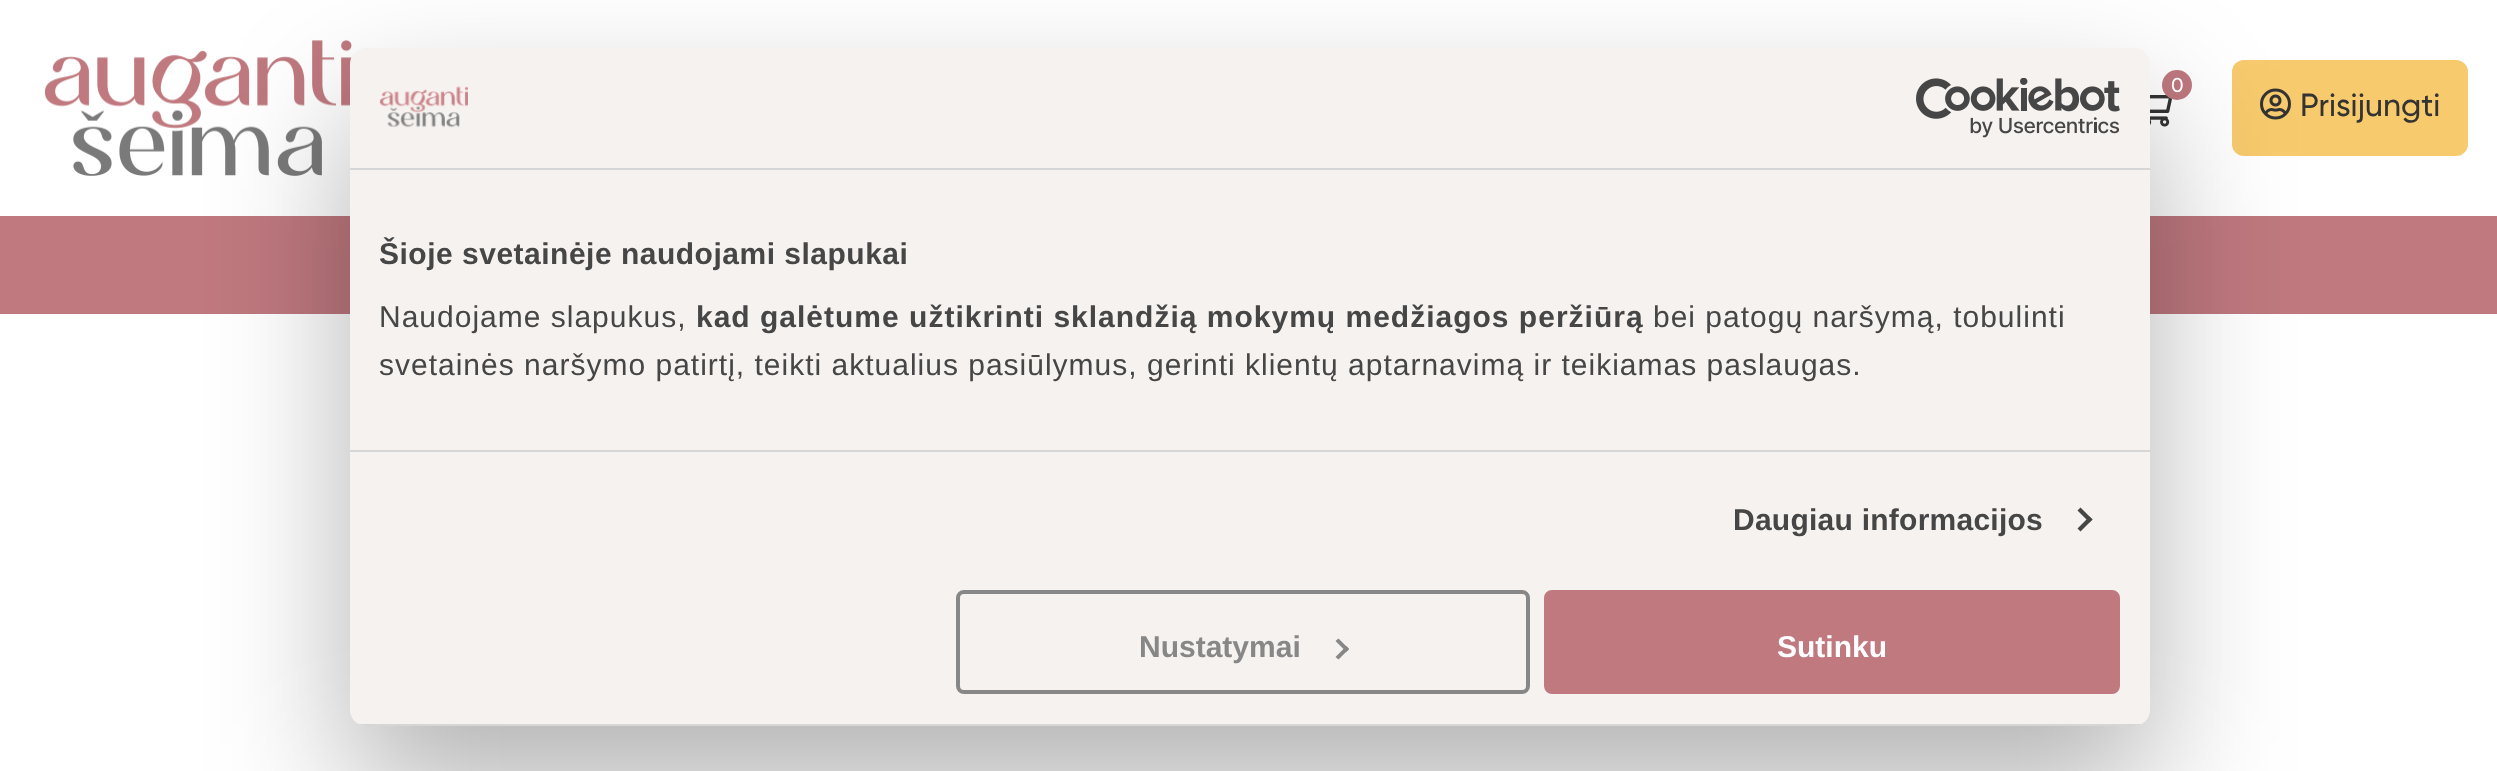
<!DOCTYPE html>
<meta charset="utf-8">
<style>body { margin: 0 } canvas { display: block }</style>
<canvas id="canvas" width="2497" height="771"></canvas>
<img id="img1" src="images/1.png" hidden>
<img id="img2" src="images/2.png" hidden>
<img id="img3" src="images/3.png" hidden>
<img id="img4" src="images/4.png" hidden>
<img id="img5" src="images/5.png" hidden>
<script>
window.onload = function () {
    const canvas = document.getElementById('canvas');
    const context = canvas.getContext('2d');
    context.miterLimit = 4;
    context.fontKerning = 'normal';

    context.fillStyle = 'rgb(255, 255, 255)';
    context.fillRect(0, 0, 2497, 771);
    context.drawImage(document.getElementById('img1'), 44, 40, 308, 136);
    context.drawImage(document.getElementById('img2'), 2150, 95, 22, 32);
    context.fillStyle = 'rgb(191, 121, 127)';
    context.beginPath();
    context.arc(2177, 85, 15, 0, 2 * Math.PI);
    context.fill();
    context.fillStyle = 'rgb(247, 202, 109)';
    context.beginPath();
    context.roundRect(2232, 60, 236, 96, 12);
    context.fill();
    context.drawImage(document.getElementById('img3'), 2260, 88, 31, 32);
    context.fillStyle = 'rgb(191, 121, 127)';
    context.fillRect(0, 216, 2497, 98);
    context.fillStyle = 'rgba(0, 0, 0, 0.3)';
    context.filter = 'blur(68px)';
    context.beginPath();
    context.roundRect(350, 112, 1800, 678, 16);
    context.fill();
    context.filter = 'none';
    context.fillStyle = 'rgb(246, 242, 240)';
    context.beginPath();
    context.roundRect(350, 48, 1800, 678, 16);
    context.fill();
    context.fillStyle = 'rgb(214, 214, 214)';
    context.fillRect(350, 168, 1800, 2);
    context.drawImage(document.getElementById('img4'), 379, 86, 89, 42);
    context.drawImage(document.getElementById('img5'), 1916, 78, 204, 60);
    context.fillRect(350, 450, 1800, 2);
    context.fillStyle = 'rgb(70, 70, 70)';
    context.beginPath();
    context.moveTo(2080.5, 507.5);
    context.lineTo(2092.5, 519.5);
    context.lineTo(2089.5, 522.5);
    context.lineTo(2077.5, 510.5);
    context.closePath();
    context.fill();
    context.beginPath();
    context.moveTo(2089.5, 516.5);
    context.lineTo(2092.5, 519.5);
    context.lineTo(2080.5, 531.5);
    context.lineTo(2077.5, 528.5);
    context.closePath();
    context.fill();
    context.save();
    context.beginPath();
    context.roundRect(350, 48, 1800, 678, 16);
    context.clip();
    context.fillStyle = 'rgb(214, 214, 214)';
    context.fillRect(350, 724, 1800, 2);
    context.restore();
    context.beginPath();
    context.roundRect(958, 592, 570, 100, 6);
    context.strokeStyle = 'rgb(135, 135, 135)';
    context.lineWidth = 4;
    context.stroke();
    context.fillStyle = 'rgb(135, 135, 135)';
    context.beginPath();
    context.moveTo(1338.5, 638.5);
    context.lineTo(1349, 649);
    context.lineTo(1346.5, 652);
    context.lineTo(1335.5, 641);
    context.closePath();
    context.fill();
    context.beginPath();
    context.moveTo(1346.5, 646);
    context.lineTo(1349, 649);
    context.lineTo(1338.5, 659.5);
    context.lineTo(1335.5, 657);
    context.closePath();
    context.fill();
    context.fillStyle = 'rgb(192, 121, 127)';
    context.beginPath();
    context.roundRect(1546, 592, 572, 100, 6);
    context.fill();
    context.strokeStyle = 'rgb(192, 121, 127)';
    context.stroke();
    context.font = '500 20px Gilroy';
    context.fillStyle = 'rgb(255, 255, 255)';
    context.fillText('0', 2171, 92);
    context.font = '500 32px Gilroy';
    context.fillStyle = 'rgb(51, 51, 51)';
    context.fillText('Prisijungti', 2300, 116);
    context.letterSpacing = '0.5px';
    context.font = 'bold 30px Liberation Sans';
    context.fillStyle = 'rgb(70, 70, 70)';
    context.fillText('Šioje svetainėje naudojami slapukai', 379, 264);
    context.letterSpacing = '1px';
    context.font = '30px Liberation Sans';
    context.fillText('Naudojame slapukus,', 379, 327);
    context.font = 'bold 30px Liberation Sans';
    context.fillText('kad galėtume užtikrinti sklandžią mokymų medžiagos peržiūrą', 696, 327);
    context.font = '30px Liberation Sans';
    context.fillText('bei patogų naršymą, tobulinti', 1653, 327);
    context.fillText('svetainės naršymo patirtį, teikti aktualius pasiūlymus, gerinti klientų aptarnavimą ir teikiamas paslaugas.', 379, 375);
    context.letterSpacing = '0.25px';
    context.font = 'bold 30px Liberation Sans';
    context.fillText('Daugiau informacijos', 1733, 530);
    context.letterSpacing = '0px';
    context.fillStyle = 'rgb(135, 135, 135)';
    context.fillText('Nustatymai', 1139, 657);
    context.fillStyle = 'rgb(255, 255, 255)';
    context.fillText('Sutinku', 1777, 657);
};
</script>
